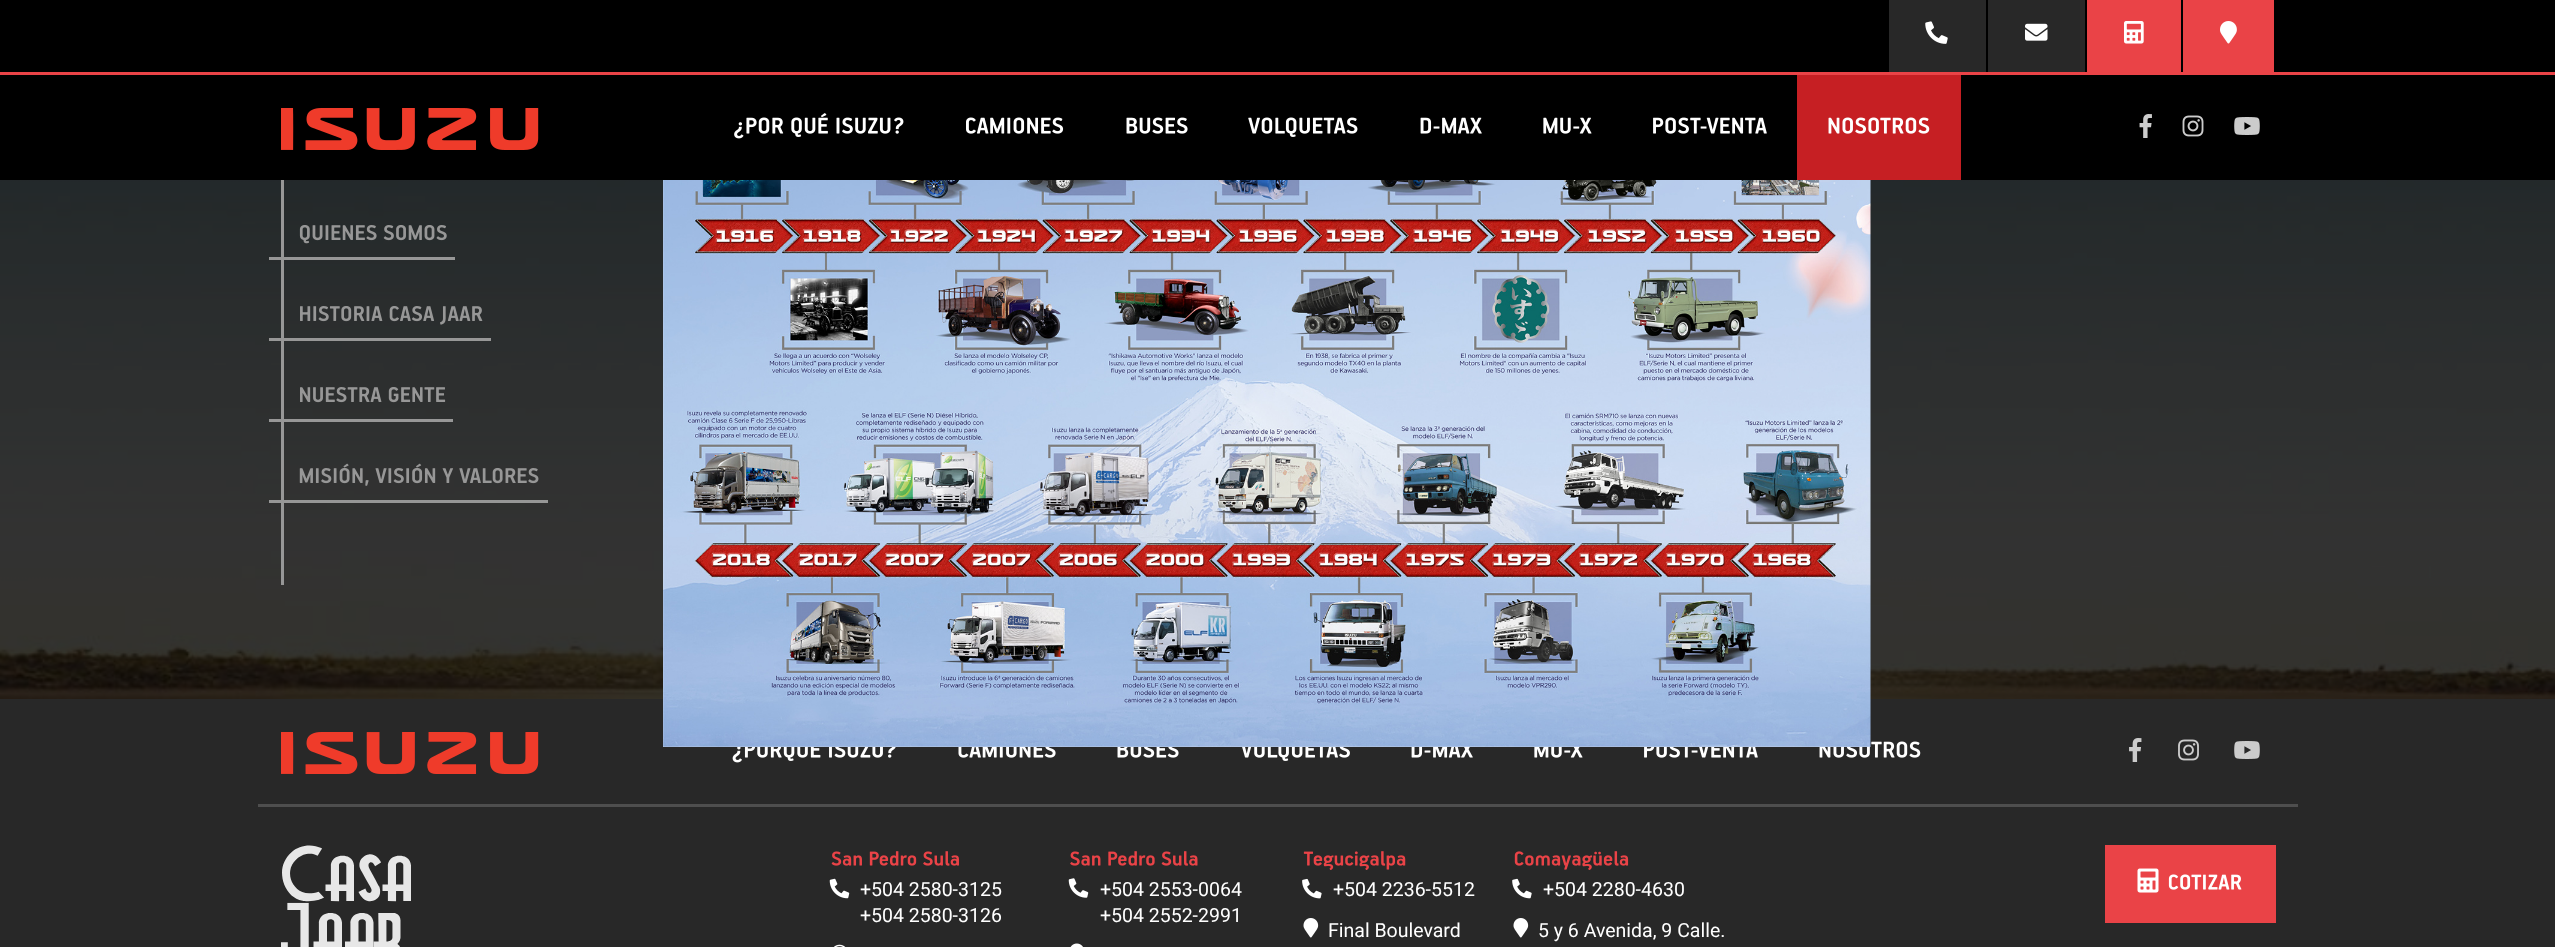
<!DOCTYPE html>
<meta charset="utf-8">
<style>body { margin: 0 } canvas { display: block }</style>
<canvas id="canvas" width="2555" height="947"></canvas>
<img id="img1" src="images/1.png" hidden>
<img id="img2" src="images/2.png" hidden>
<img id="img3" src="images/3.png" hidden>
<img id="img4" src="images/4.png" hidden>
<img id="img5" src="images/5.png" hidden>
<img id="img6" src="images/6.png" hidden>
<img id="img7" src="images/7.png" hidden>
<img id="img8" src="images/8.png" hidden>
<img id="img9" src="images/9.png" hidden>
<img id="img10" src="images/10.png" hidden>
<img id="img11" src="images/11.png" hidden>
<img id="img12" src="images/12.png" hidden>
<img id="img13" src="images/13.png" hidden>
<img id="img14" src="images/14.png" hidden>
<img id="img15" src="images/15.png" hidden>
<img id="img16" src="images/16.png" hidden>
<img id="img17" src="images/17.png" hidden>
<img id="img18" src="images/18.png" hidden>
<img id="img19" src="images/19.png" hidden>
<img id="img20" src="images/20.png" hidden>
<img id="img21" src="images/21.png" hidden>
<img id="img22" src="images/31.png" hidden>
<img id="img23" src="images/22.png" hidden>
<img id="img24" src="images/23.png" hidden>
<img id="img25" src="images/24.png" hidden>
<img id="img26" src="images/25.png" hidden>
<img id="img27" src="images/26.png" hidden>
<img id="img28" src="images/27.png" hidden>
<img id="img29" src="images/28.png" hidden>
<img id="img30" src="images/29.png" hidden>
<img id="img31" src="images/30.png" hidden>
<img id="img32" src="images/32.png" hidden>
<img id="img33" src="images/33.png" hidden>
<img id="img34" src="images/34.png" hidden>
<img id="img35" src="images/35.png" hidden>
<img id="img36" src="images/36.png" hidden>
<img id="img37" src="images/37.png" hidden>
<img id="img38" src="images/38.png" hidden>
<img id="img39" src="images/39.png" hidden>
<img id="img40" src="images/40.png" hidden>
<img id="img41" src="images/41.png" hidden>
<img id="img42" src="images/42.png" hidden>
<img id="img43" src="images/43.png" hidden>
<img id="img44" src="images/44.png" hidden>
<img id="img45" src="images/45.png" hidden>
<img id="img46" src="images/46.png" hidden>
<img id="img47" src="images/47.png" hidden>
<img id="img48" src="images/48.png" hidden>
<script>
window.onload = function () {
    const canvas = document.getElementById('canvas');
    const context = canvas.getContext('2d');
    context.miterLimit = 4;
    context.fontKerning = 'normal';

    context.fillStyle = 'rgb(40, 40, 40)';
    context.fillRect(0, 0, 2555, 947);
    context.fillStyle = 'rgb(0, 0, 0)';
    context.fillRect(0, 0, 2555, 180);
    context.fillStyle = 'rgb(234, 67, 71)';
    context.fillRect(0, 72, 2555, 3);
    context.fillStyle = 'rgb(40, 40, 40)';
    context.fillRect(1889, 0, 97, 72);
    context.drawImage(document.getElementById('img1'), 1925, 21, 23, 23);
    context.fillRect(1988, 0, 97, 72);
    context.drawImage(document.getElementById('img2'), 2025, 23, 23, 18);
    context.fillStyle = 'rgb(234, 67, 71)';
    context.fillRect(2087, 0, 94, 72);
    context.drawImage(document.getElementById('img3'), 2124, 21, 20, 23);
    context.fillRect(2183, 0, 91, 72);
    context.drawImage(document.getElementById('img4'), 2220, 21, 17, 23);
    context.drawImage(document.getElementById('img5'), 281, 108, 258, 42);
    context.drawImage(document.getElementById('img6'), 734, 113, 170, 26);
    context.drawImage(document.getElementById('img7'), 966, 117, 98, 17);
    context.drawImage(document.getElementById('img8'), 1126, 117, 62, 17);
    context.drawImage(document.getElementById('img9'), 1248, 117, 110, 20);
    context.drawImage(document.getElementById('img10'), 1420, 117, 62, 17);
    context.drawImage(document.getElementById('img11'), 1543, 117, 49, 17);
    context.drawImage(document.getElementById('img12'), 1653, 117, 114, 17);
    context.fillStyle = 'rgb(198, 31, 35)';
    context.fillRect(1797, 75, 164, 105);
    context.drawImage(document.getElementById('img13'), 1828, 117, 102, 17);
    context.drawImage(document.getElementById('img14'), 2139, 114, 13, 24);
    context.drawImage(document.getElementById('img15'), 2182, 115, 22, 22);
    context.drawImage(document.getElementById('img16'), 2234, 117, 26, 18);
    context.drawImage(document.getElementById('img17'), 0, 180, 2555, 519);
    context.fillStyle = 'rgb(151, 151, 151)';
    context.fillRect(281, 180, 3, 405);
    context.fillRect(269, 257, 186, 3);
    context.drawImage(document.getElementById('img18'), 299, 225, 148, 19);
    context.fillRect(269, 338, 222, 3);
    context.drawImage(document.getElementById('img19'), 300, 306, 183, 19);
    context.fillRect(269, 419, 184, 3);
    context.drawImage(document.getElementById('img20'), 300, 387, 146, 16);
    context.fillRect(269, 500, 279, 3);
    context.drawImage(document.getElementById('img21'), 299, 463, 240, 23);
    context.drawImage(document.getElementById('img22'), 1819, 741, 102, 17);
    context.drawImage(document.getElementById('img23'), 663, 180, 1208, 567);
    context.drawImage(document.getElementById('img24'), 281, 732, 258, 42);
    context.drawImage(document.getElementById('img25'), 732, 747, 164, 16);
    context.drawImage(document.getElementById('img26'), 958, 747, 98, 11);
    context.drawImage(document.getElementById('img27'), 1117, 747, 62, 11);
    context.drawImage(document.getElementById('img28'), 1242, 747, 108, 14);
    context.drawImage(document.getElementById('img29'), 1411, 747, 62, 11);
    context.drawImage(document.getElementById('img30'), 1534, 747, 49, 11);
    context.drawImage(document.getElementById('img31'), 1644, 747, 114, 11);
    context.drawImage(document.getElementById('img32'), 2129, 738, 13, 24);
    context.drawImage(document.getElementById('img33'), 2178, 739, 21, 22);
    context.drawImage(document.getElementById('img34'), 2234, 741, 26, 18);
    context.fillStyle = 'rgb(78, 78, 78)';
    context.fillRect(258, 804, 2040, 3);
    context.drawImage(document.getElementById('img35'), 281, 845, 130, 102);
    context.drawImage(document.getElementById('img36'), 831, 851, 128, 15);
    context.drawImage(document.getElementById('img37'), 829, 878, 21, 21);
    context.drawImage(document.getElementById('img38'), 834, 944, 12, 3);
    context.drawImage(document.getElementById('img39'), 1070, 851, 128, 15);
    context.drawImage(document.getElementById('img40'), 1068, 878, 21, 20);
    context.drawImage(document.getElementById('img41'), 1070, 943, 13, 4);
    context.drawImage(document.getElementById('img42'), 1303, 851, 103, 19);
    context.drawImage(document.getElementById('img43'), 1302, 878, 20, 21);
    context.drawImage(document.getElementById('img44'), 1303, 918, 16, 20);
    context.drawImage(document.getElementById('img45'), 1514, 851, 115, 19);
    context.drawImage(document.getElementById('img46'), 1512, 878, 20, 21);
    context.drawImage(document.getElementById('img44'), 1513, 918, 16, 20);
    context.fillStyle = 'rgb(234, 67, 71)';
    context.fillRect(2105, 845, 171, 78);
    context.drawImage(document.getElementById('img47'), 2137, 868, 22, 25);
    context.drawImage(document.getElementById('img48'), 2168, 874, 74, 16);
    context.font = '19.5px Roboto';
    context.fillStyle = 'rgb(255, 255, 255)';
    context.fillText('+504 2580-3125', 860, 896);
    context.fillText('+504 2580-3126', 860, 922);
    context.fillText('+504 2553-0064', 1100, 896);
    context.fillText('+504 2552-2991', 1100, 922);
    context.fillText('+504 2236-5512', 1333, 896);
    context.fillText('Final Boulevard', 1328, 937);
    context.fillText('+504 2280-4630', 1543, 896);
    context.fillText('5 y 6 Avenida, 9 Calle.', 1538, 937);
};
</script>
